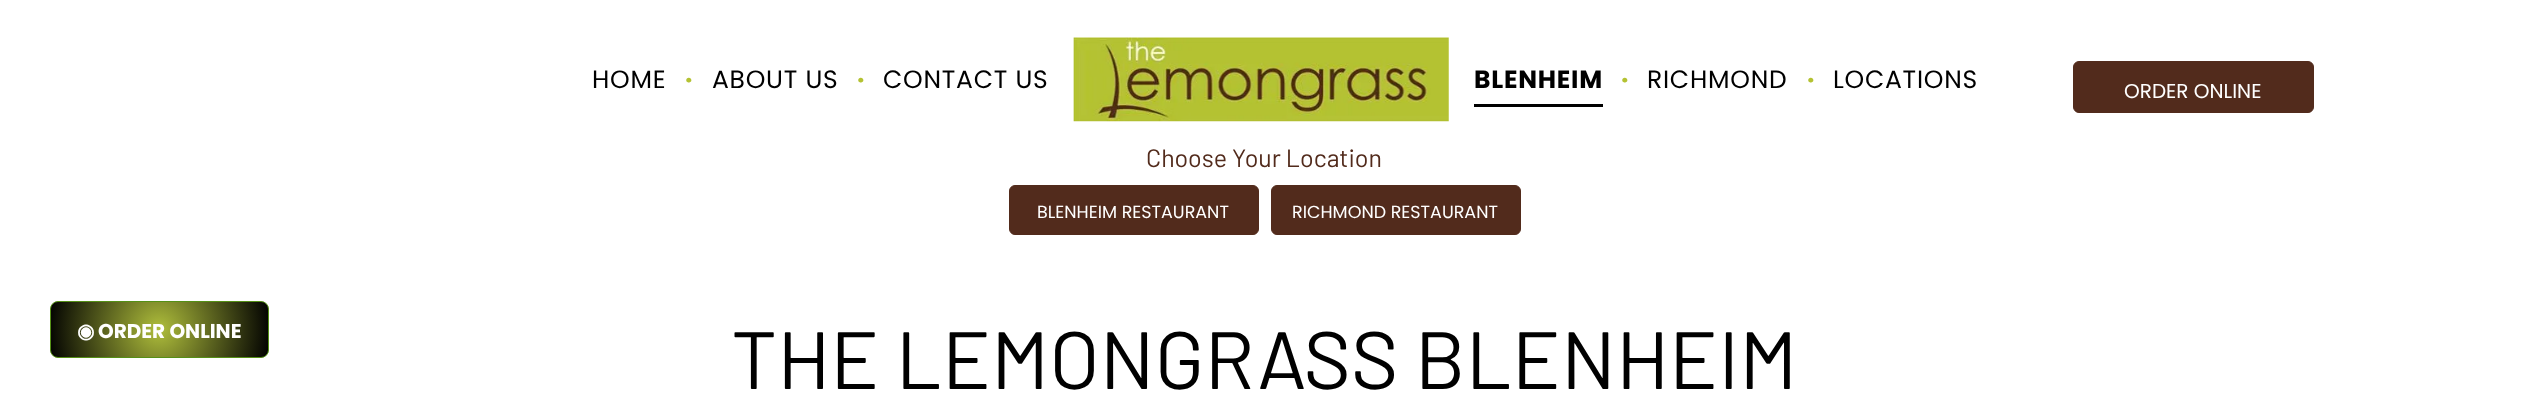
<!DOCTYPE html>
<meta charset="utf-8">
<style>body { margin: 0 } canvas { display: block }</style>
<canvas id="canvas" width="2528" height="407"></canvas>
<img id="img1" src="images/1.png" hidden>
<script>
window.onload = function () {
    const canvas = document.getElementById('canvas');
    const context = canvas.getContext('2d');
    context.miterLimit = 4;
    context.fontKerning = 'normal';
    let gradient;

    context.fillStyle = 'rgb(255, 255, 255)';
    context.fillRect(0, 0, 2528, 407);
    context.drawImage(document.getElementById('img1'), 1073, 37, 376, 85);
    context.fillStyle = 'rgb(0, 0, 0)';
    context.fillRect(1474, 104, 129, 3);
    context.fillStyle = 'rgb(82, 43, 28)';
    context.beginPath();
    context.roundRect(2073.5, 61.5, 240, 51, 5.5);
    context.fill();
    context.strokeStyle = 'rgb(82, 43, 28)';
    context.stroke();
    context.beginPath();
    context.roundRect(1009.5, 185.5, 249, 49, 5.5);
    context.fill();
    context.stroke();
    context.beginPath();
    context.roundRect(1271.5, 185.5, 249, 49, 5.5);
    context.fill();
    context.stroke();
    gradient = context.createRadialGradient(159, 329, 0, 159, 329, 113);
    gradient.addColorStop(0.01, 'rgb(173, 188, 59)');
    gradient.addColorStop(1, 'rgb(0, 0, 0)');
    context.fillStyle = gradient;
    context.beginPath();
    context.roundRect(50.5, 301.5, 218, 56, 7.5);
    context.fill();
    context.strokeStyle = 'rgb(85, 144, 22)';
    context.stroke();
    context.letterSpacing = '0.75px';
    context.font = '25px Poppins';
    context.fillStyle = 'rgb(0, 0, 0)';
    context.fillText('HOME', 592, 88);
    context.letterSpacing = '0px';
    context.font = 'bold 25px Poppins';
    context.fillStyle = 'rgb(180, 194, 50)';
    context.fillText('·', 685, 88);
    context.letterSpacing = '0.75px';
    context.font = '25px Poppins';
    context.fillStyle = 'rgb(0, 0, 0)';
    context.fillText('ABOUT US', 712, 88);
    context.letterSpacing = '0px';
    context.font = 'bold 25px Poppins';
    context.fillStyle = 'rgb(180, 194, 50)';
    context.fillText('·', 857, 88);
    context.letterSpacing = '0.75px';
    context.font = '25px Poppins';
    context.fillStyle = 'rgb(0, 0, 0)';
    context.fillText('CONTACT US', 883, 88);
    context.font = 'bold 25px Poppins';
    context.fillText('BLENHEIM', 1474, 88);
    context.letterSpacing = '0px';
    context.fillStyle = 'rgb(180, 194, 50)';
    context.fillText('·', 1621, 88);
    context.letterSpacing = '0.75px';
    context.font = '25px Poppins';
    context.fillStyle = 'rgb(0, 0, 0)';
    context.fillText('RICHMOND', 1647, 88);
    context.letterSpacing = '0px';
    context.font = 'bold 25px Poppins';
    context.fillStyle = 'rgb(180, 194, 50)';
    context.fillText('·', 1807, 88);
    context.letterSpacing = '0.75px';
    context.font = '25px Poppins';
    context.fillStyle = 'rgb(0, 0, 0)';
    context.fillText('LOCATIONS', 1833, 88);
    context.letterSpacing = '0px';
    context.font = '20px Poppins';
    context.fillStyle = 'rgb(255, 255, 255)';
    context.fillText('ORDER ONLINE', 2124, 98);
    context.font = '25px Barlow';
    context.fillStyle = 'rgb(82, 43, 28)';
    context.fillText('Choose Your Location', 1146, 167);
    context.font = '17.5px Poppins';
    context.fillStyle = 'rgb(255, 255, 255)';
    context.fillText('BLENHEIM RESTAURANT', 1037, 218);
    context.fillText('RICHMOND RESTAURANT', 1292, 218);
    context.font = 'bold 20px DejaVu Sans';
    context.fillText('◉', 77, 338);
    context.font = 'bold 20px Poppins';
    context.fillText('ORDER ONLINE', 98, 338);
    context.font = '81.25px Barlow';
    context.fillStyle = 'rgb(0, 0, 0)';
    context.fillText('THE LEMONGRASS BLENHEIM', 731, 389);
};
</script>
